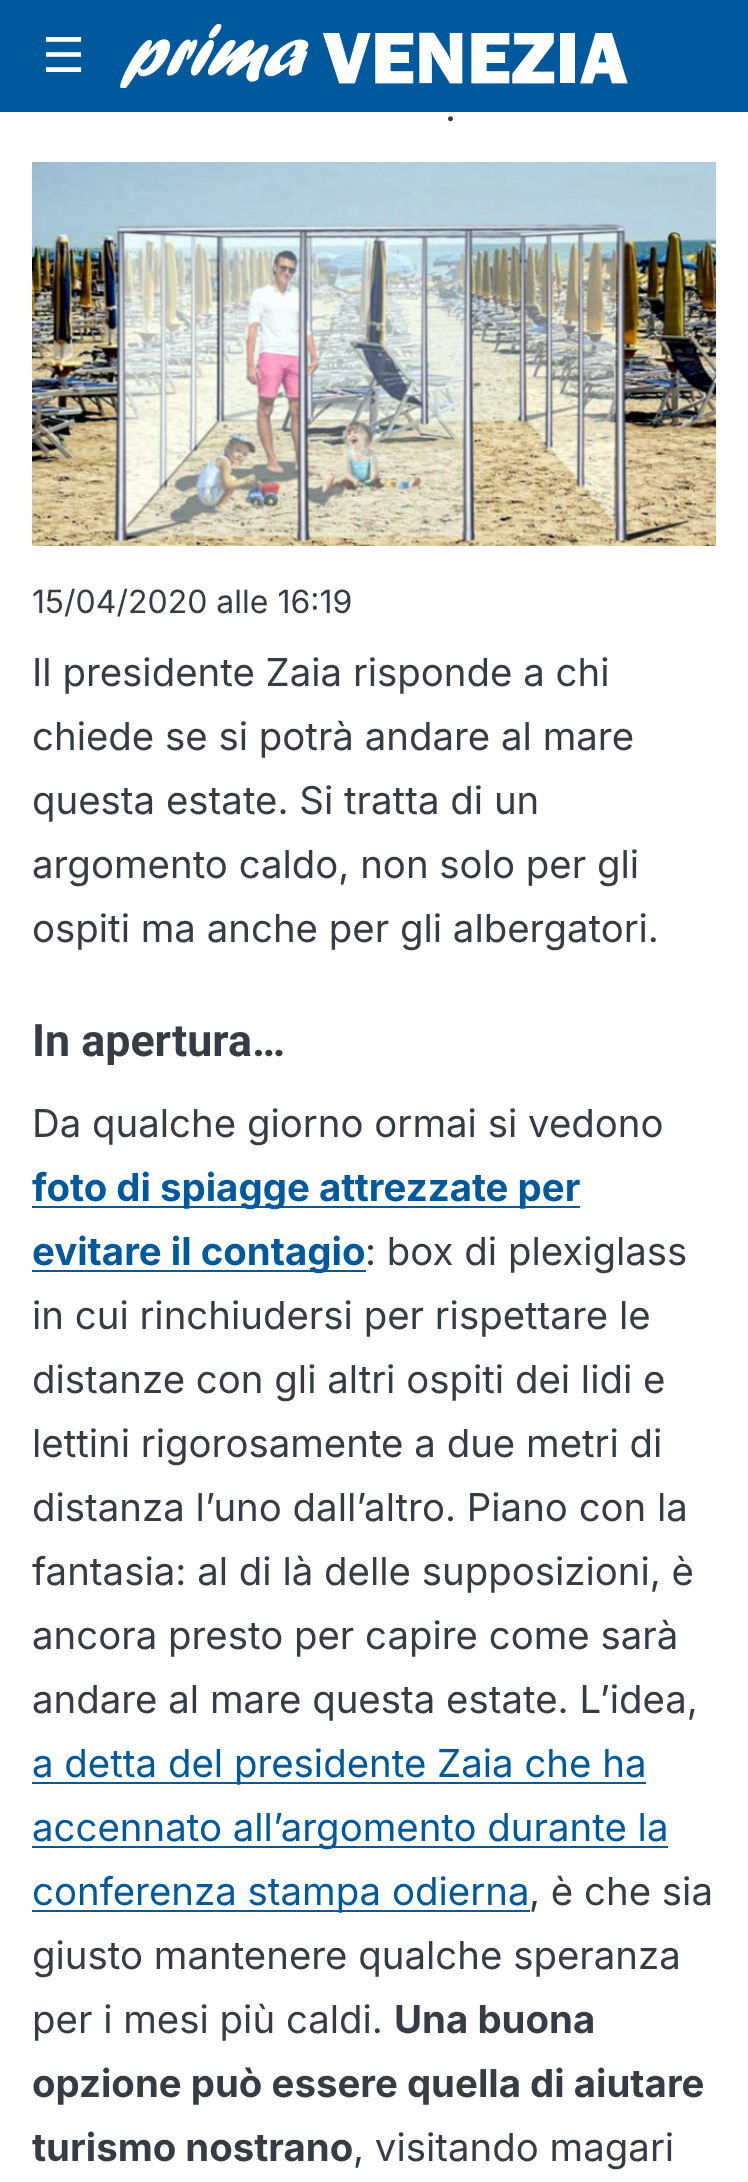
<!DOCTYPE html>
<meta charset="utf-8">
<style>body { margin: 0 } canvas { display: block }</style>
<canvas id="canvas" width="748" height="2182"></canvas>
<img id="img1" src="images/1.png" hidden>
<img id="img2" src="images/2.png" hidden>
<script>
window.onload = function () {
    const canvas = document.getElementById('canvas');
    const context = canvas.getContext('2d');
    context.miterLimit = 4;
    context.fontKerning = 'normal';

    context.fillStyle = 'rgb(255, 255, 255)';
    context.fillRect(0, 0, 748, 2182);
    context.fillStyle = 'rgb(0, 89, 156)';
    context.fillRect(0, 0, 748, 112);
    context.drawImage(document.getElementById('img1'), 120, 24, 508, 64);
    context.drawImage(document.getElementById('img2'), 32, 162, 684, 384);
    context.fillRect(32, 1206, 548, 2);
    context.fillRect(32, 1270, 334, 2);
    context.fillRect(32, 1782, 614, 2);
    context.fillRect(32, 1846, 636, 2);
    context.fillRect(32, 1910, 498, 2);
    context.font = '48px DejaVu Sans';
    context.fillStyle = 'rgb(255, 255, 255)';
    context.fillText('☰', 42, 72);
    context.font = '38.4px Inter';
    context.fillStyle = 'rgb(55, 60, 68)';
    context.fillText('.', 445, 121);
    context.font = '32px Inter';
    context.fillText('15/04/2020 alle 16:19', 32, 613);
    context.font = '38.4px Inter';
    context.fillText('Il presidente Zaia risponde a chi', 32, 686);
    context.fillText('chiede se si potrà andare al mare', 32, 750);
    context.fillText('questa estate. Si tratta di un', 32, 814);
    context.fillText('argomento caldo, non solo per gli', 32, 878);
    context.fillText('ospiti ma anche per gli albergatori.', 32, 942);
    context.font = 'bold 44.75px Roboto';
    context.fillText('In apertura…', 32, 1056);
    context.font = '38.4px Inter';
    context.fillText('Da qualche giorno ormai si vedono', 32, 1137);
    context.font = 'bold 38.4px Inter';
    context.fillStyle = 'rgb(0, 89, 156)';
    context.fillText('foto di spiagge attrezzate per', 32, 1201);
    context.fillText('evitare il contagio', 32, 1265);
    context.font = '38.4px Inter';
    context.fillStyle = 'rgb(55, 60, 68)';
    context.fillText(': box di plexiglass', 365, 1265);
    context.fillText('in cui rinchiudersi per rispettare le', 32, 1329);
    context.fillText('distanze con gli altri ospiti dei lidi e', 32, 1393);
    context.fillText('lettini rigorosamente a due metri di', 32, 1457);
    context.fillText('distanza l’uno dall’altro. Piano con la', 32, 1521);
    context.fillText('fantasia: al di là delle supposizioni, è', 32, 1585);
    context.fillText('ancora presto per capire come sarà', 32, 1649);
    context.fillText('andare al mare questa estate. L’idea,', 32, 1713);
    context.fillStyle = 'rgb(0, 89, 156)';
    context.fillText('a detta del presidente Zaia che ha', 32, 1777);
    context.fillText('accennato all’argomento durante la', 32, 1841);
    context.fillText('conferenza stampa odierna', 32, 1905);
    context.fillStyle = 'rgb(55, 60, 68)';
    context.fillText(', è che sia', 529, 1905);
    context.fillText('giusto mantenere qualche speranza', 32, 1969);
    context.fillText('per i mesi più caldi.', 32, 2033);
    context.font = 'bold 38.4px Inter';
    context.fillText('Una buona', 394, 2033);
    context.fillText('opzione può essere quella di aiutare', 32, 2097);
    context.fillText('turismo nostrano', 32, 2161);
    context.font = '38.4px Inter';
    context.fillText(', visitando magari', 353, 2161);
};
</script>
